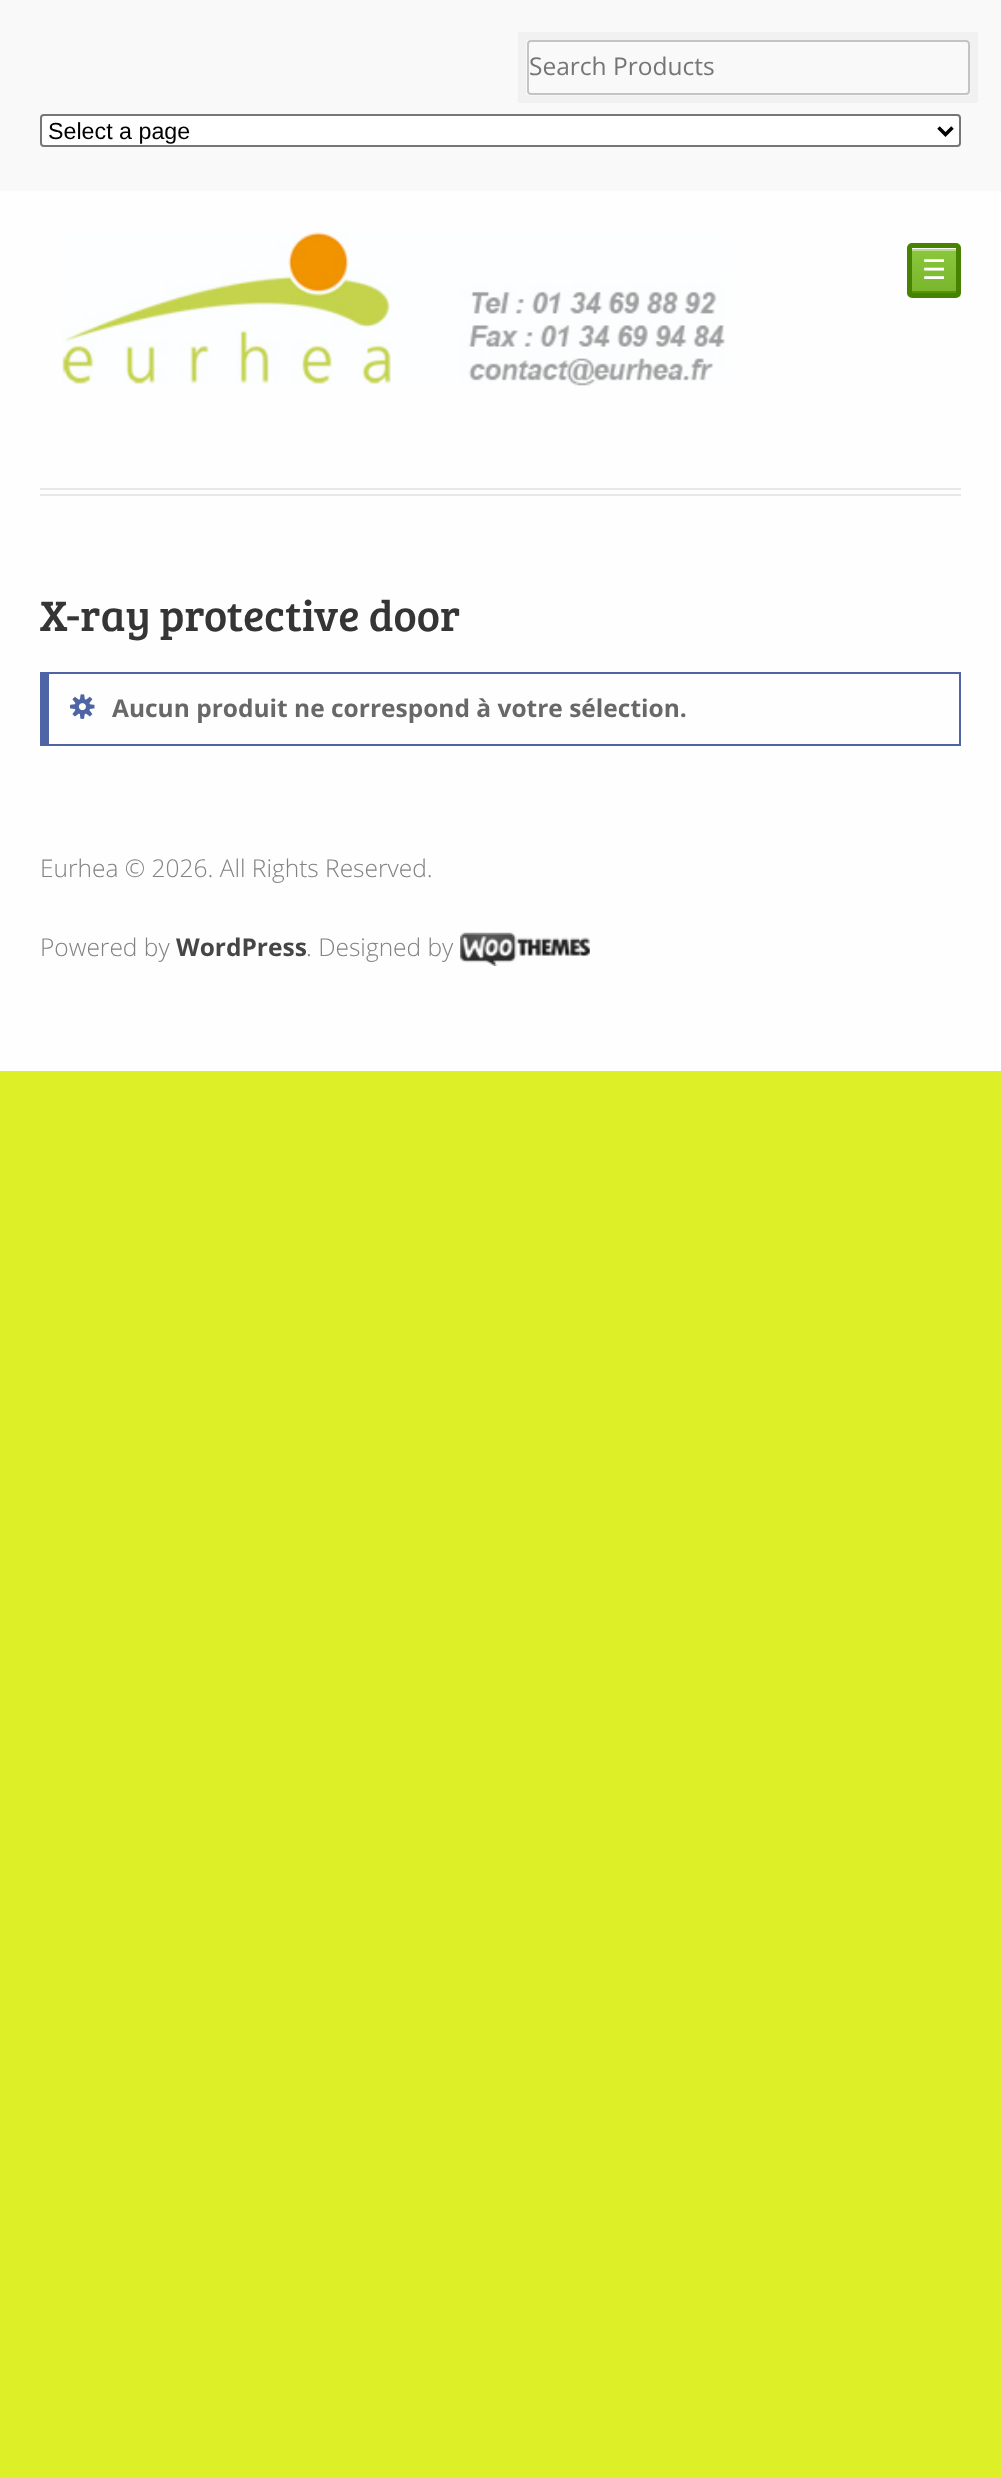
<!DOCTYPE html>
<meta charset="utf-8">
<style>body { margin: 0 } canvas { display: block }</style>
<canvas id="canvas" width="1001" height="2478"></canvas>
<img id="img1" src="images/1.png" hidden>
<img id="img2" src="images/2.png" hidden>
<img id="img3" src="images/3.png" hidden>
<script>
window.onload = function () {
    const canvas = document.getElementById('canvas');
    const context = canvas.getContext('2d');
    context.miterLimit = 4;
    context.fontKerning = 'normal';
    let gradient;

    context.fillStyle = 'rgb(221, 239, 39)';
    context.fillRect(0, 0, 1001, 2478);
    context.fillStyle = 'rgb(254, 254, 254)';
    context.fillRect(0, 191, 1001, 880);
    context.fillStyle = 'rgb(249, 249, 249)';
    context.fillRect(0, 0, 1001, 191);
    context.fillStyle = 'rgb(255, 255, 255)';
    context.beginPath();
    context.moveTo(527, 93);
    context.bezierCurveTo(527, 95, 529, 96, 531, 96);
    context.lineTo(966, 96);
    context.bezierCurveTo(968, 96, 970, 94, 970, 92);
    context.lineTo(970, 46);
    context.lineTo(970, 44);
    context.lineTo(970, 91);
    context.bezierCurveTo(970, 93, 968, 94, 966, 94);
    context.lineTo(530, 94);
    context.bezierCurveTo(529, 94, 528, 94, 527, 93);
    context.closePath();
    context.fill();
    context.strokeStyle = 'rgba(0, 0, 0, 0.03)';
    context.lineWidth = 8;
    context.strokeRect(522, 36, 452, 63);
    context.fillStyle = 'rgb(249, 249, 249)';
    context.beginPath();
    context.roundRect(528, 41, 441, 53, 3);
    context.fill();
    context.strokeStyle = 'rgb(196, 196, 196)';
    context.lineWidth = 2;
    context.stroke();
    context.fillStyle = 'rgb(255, 255, 255)';
    context.beginPath();
    context.roundRect(41, 115, 919, 31, 3);
    context.fill();
    context.strokeStyle = 'rgb(118, 118, 118)';
    context.stroke();
    context.beginPath();
    context.moveTo(938.5, 127.5);
    context.lineTo(945.5, 134.5);
    context.lineTo(952.5, 127.5);
    context.strokeStyle = 'rgb(0, 0, 0)';
    context.lineWidth = 3.5;
    context.stroke();
    context.fillStyle = 'rgb(232, 232, 232)';
    context.fillRect(40, 488, 921, 2);
    context.fillRect(40, 494, 921, 2);
    context.drawImage(document.getElementById('img1'), 62, 232, 663, 154);
    gradient = context.createLinearGradient(934, 249, 934, 292);
    gradient.addColorStop(0, 'rgb(139, 199, 60)');
    gradient.addColorStop(1, 'rgb(122, 182, 43)');
    context.fillStyle = gradient;
    context.fillRect(912, 251, 44, 40);
    context.fillStyle = 'rgb(88, 148, 9)';
    context.fillRect(912, 291, 44, 2);
    context.fillStyle = 'rgb(185, 221, 138)';
    context.fillRect(912, 249, 44, 2);
    context.beginPath();
    context.roundRect(909.5, 245.5, 49, 50, 2.5);
    context.strokeStyle = 'rgb(71, 131, 0)';
    context.lineWidth = 5;
    context.stroke();
    context.fillStyle = 'rgb(77, 101, 164)';
    context.fillRect(49, 672, 912, 2);
    context.fillRect(959, 672, 2, 74);
    context.fillRect(49, 744, 912, 2);
    context.fillRect(40, 672, 9, 74);
    context.drawImage(document.getElementById('img2'), 70, 694, 25, 25);
    context.drawImage(document.getElementById('img3'), 460, 932, 130, 34);
    context.font = '24.5px Open Sans';
    context.fillStyle = 'rgb(117, 117, 117)';
    context.fillText('Search Products', 529, 75);
    context.font = '23.25px Liberation Sans';
    context.fillStyle = 'rgb(0, 0, 0)';
    context.fillText('Select a page', 48, 139);
    context.font = '27px DejaVu Sans';
    context.fillStyle = 'rgb(255, 255, 255)';
    context.fillText('☰', 922, 279);
    context.font = '44px Bree Serif';
    context.fillStyle = 'rgb(53, 53, 53)';
    context.fillText('X-ray protective door', 40, 631);
    context.font = 'bold 24.5px Open Sans';
    context.fillStyle = 'rgb(104, 104, 104)';
    context.fillText('Aucun produit ne correspond à votre sélection.', 112, 717);
    context.font = '300 24.5px Open Sans';
    context.fillStyle = 'rgb(130, 130, 130)';
    context.fillText('Eurhea © 2026. All Rights Reserved.', 40, 877);
    context.fillText('Powered by', 40, 956);
    context.font = 'bold 24.5px Open Sans';
    context.fillStyle = 'rgb(70, 70, 70)';
    context.fillText('WordPress', 176, 956);
    context.font = '300 24.5px Open Sans';
    context.fillStyle = 'rgb(130, 130, 130)';
    context.fillText('. Designed by', 306, 956);
};
</script>
